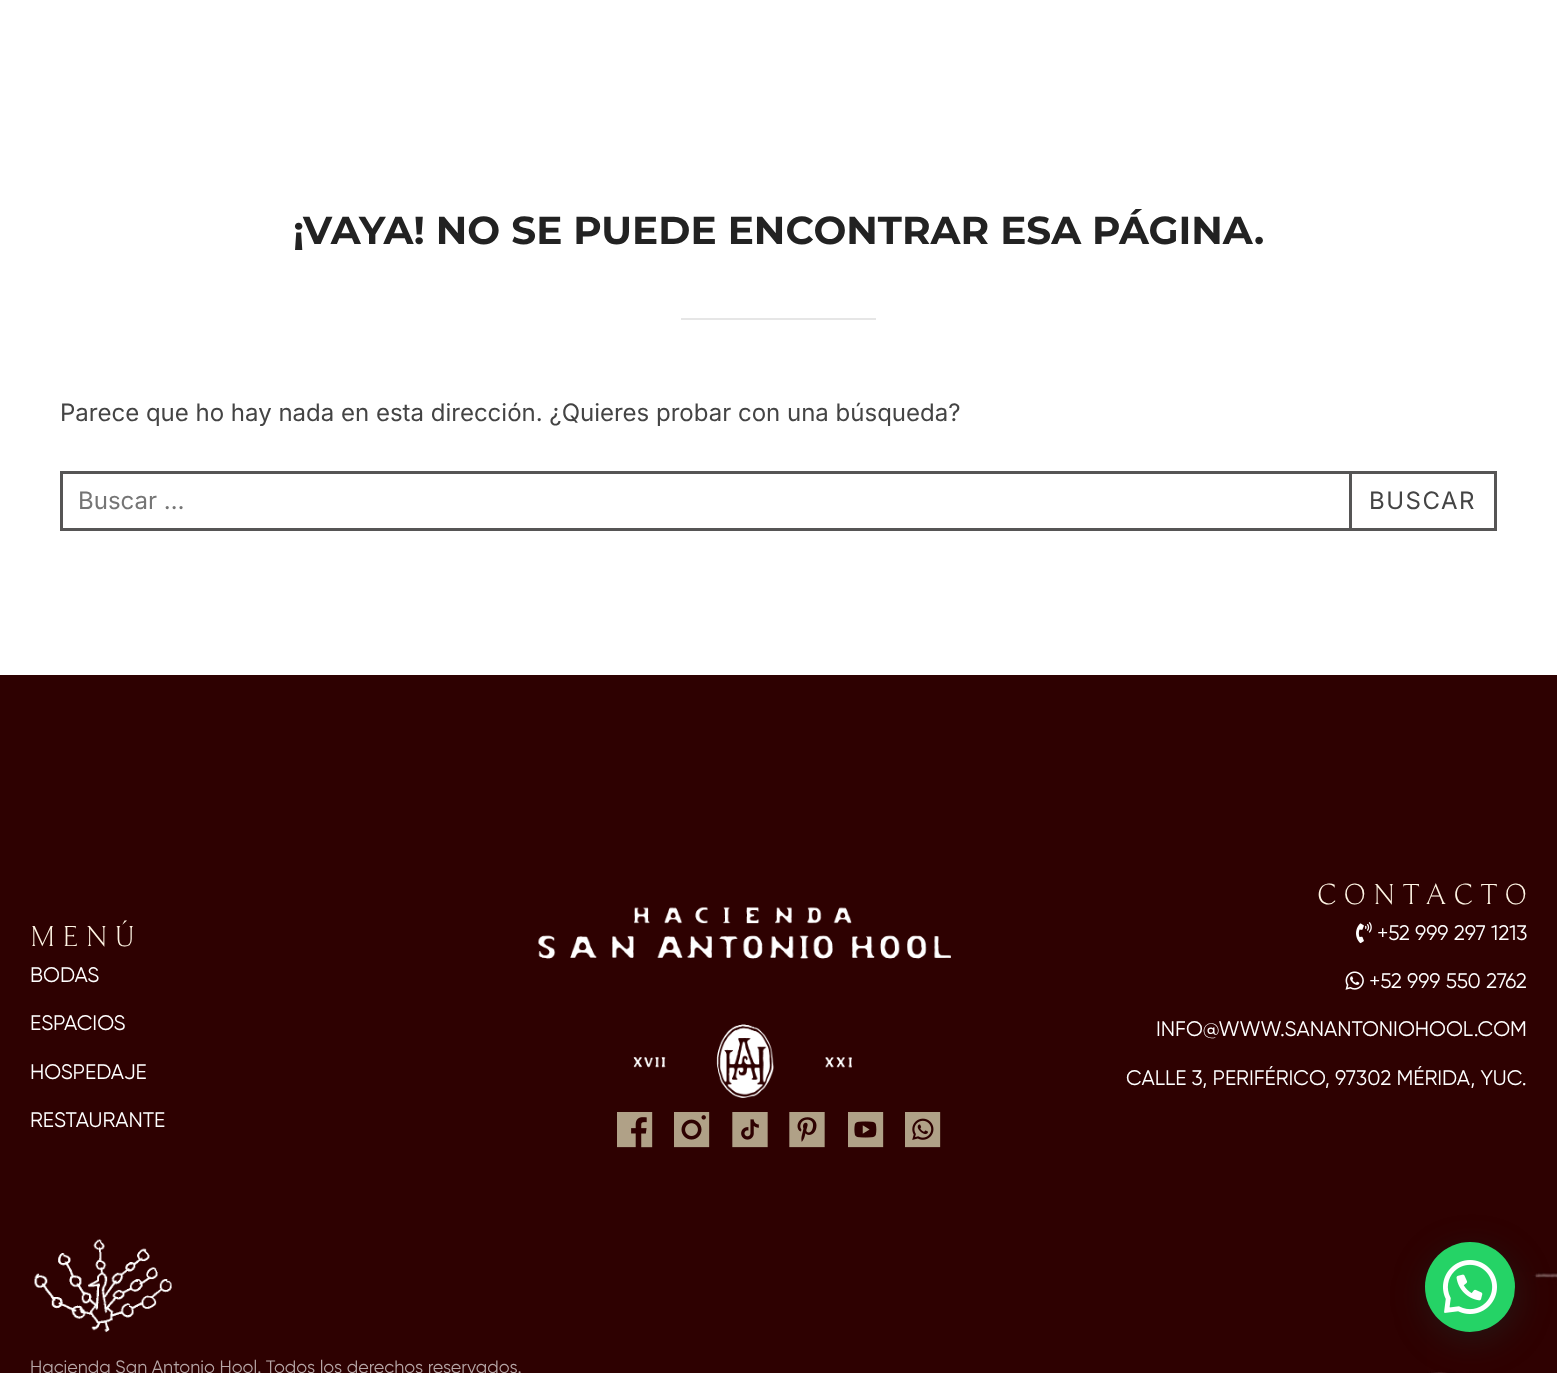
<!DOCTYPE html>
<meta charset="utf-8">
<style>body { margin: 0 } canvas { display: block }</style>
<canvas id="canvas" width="1557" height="1373"></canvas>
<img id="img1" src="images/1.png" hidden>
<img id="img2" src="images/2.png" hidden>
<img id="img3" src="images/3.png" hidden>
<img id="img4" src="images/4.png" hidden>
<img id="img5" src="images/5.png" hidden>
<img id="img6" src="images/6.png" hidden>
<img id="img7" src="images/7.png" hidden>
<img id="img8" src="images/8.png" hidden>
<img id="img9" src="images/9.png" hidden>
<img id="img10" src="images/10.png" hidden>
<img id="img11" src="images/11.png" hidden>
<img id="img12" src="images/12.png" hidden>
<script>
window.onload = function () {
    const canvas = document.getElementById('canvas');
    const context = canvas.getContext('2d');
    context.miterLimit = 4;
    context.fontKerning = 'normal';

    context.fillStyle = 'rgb(255, 255, 255)';
    context.fillRect(0, 0, 1557, 1373);
    context.fillStyle = 'rgb(230, 230, 230)';
    context.fillRect(681, 318, 195, 2);
    context.strokeStyle = 'rgb(86, 85, 85)';
    context.lineWidth = 3;
    context.strokeRect(61.5, 472.5, 1434, 57);
    context.strokeRect(1350.5, 472.5, 145, 57);
    context.fillStyle = 'rgb(46, 1, 1)';
    context.fillRect(0, 675, 1557, 698);
    context.drawImage(document.getElementById('img1'), 1427, 1272, 130, 101);
    context.drawImage(document.getElementById('img2'), 538, 907, 413, 191);
    context.drawImage(document.getElementById('img3'), 617, 1112, 36, 36);
    context.drawImage(document.getElementById('img4'), 674, 1112, 36, 36);
    context.drawImage(document.getElementById('img5'), 732, 1112, 36, 36);
    context.drawImage(document.getElementById('img6'), 789, 1112, 36, 36);
    context.drawImage(document.getElementById('img7'), 848, 1112, 36, 36);
    context.drawImage(document.getElementById('img8'), 905, 1112, 36, 36);
    context.drawImage(document.getElementById('img9'), 1356, 922, 16, 22);
    context.drawImage(document.getElementById('img10'), 1345, 971, 19, 19);
    context.drawImage(document.getElementById('img11'), 34, 1239, 138, 94);
    context.fillStyle = 'rgba(7, 94, 84, 0.24)';
    context.filter = 'blur(18px)';
    context.beginPath();
    context.roundRect(1427, 1251, 90, 90, 45);
    context.fill();
    context.filter = 'none';
    context.fillStyle = 'rgb(37, 211, 102)';
    context.beginPath();
    context.arc(1470, 1287, 45, 0, 2 * Math.PI);
    context.fill();
    context.drawImage(document.getElementById('img12'), 1443, 1260, 54, 54);
    context.font = 'bold 39px Montserrat';
    context.fillStyle = 'rgb(34, 34, 34)';
    context.fillText('¡VAYA! NO SE PUEDE ENCONTRAR ESA PÁGINA.', 293, 244);
    context.font = '24px Inter';
    context.fillStyle = 'rgb(68, 68, 68)';
    context.fillText('Parece que ho hay nada en esta dirección. ¿Quieres probar con una búsqueda?', 60, 421);
    context.fillStyle = 'rgb(117, 117, 117)';
    context.fillText('Buscar …', 78, 509);
    context.letterSpacing = '1.5px';
    context.fillStyle = 'rgb(68, 68, 68)';
    context.fillText('BUSCAR', 1369, 509);
    context.letterSpacing = '7.5px';
    context.font = '300 30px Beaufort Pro';
    context.fillStyle = 'rgb(255, 245, 228)';
    context.fillText('MENÚ', 30, 946);
    context.letterSpacing = '0px';
    context.font = '21px Gilroy';
    context.fillStyle = 'rgb(255, 255, 255)';
    context.fillText('BODAS', 30, 982);
    context.fillText('ESPACIOS', 30, 1030);
    context.fillText('HOSPEDAJE', 30, 1079);
    context.fillText('RESTAURANTE', 30, 1127);
    context.letterSpacing = '7.5px';
    context.font = '300 30px Beaufort Pro';
    context.fillStyle = 'rgb(255, 245, 228)';
    context.fillText('CONTACTO', 1317, 904);
    context.letterSpacing = '0px';
    context.font = '21px Gilroy';
    context.fillStyle = 'rgb(255, 255, 255)';
    context.fillText('+52 999 297 1213', 1377, 940);
    context.fillText('+52 999 550 2762', 1369, 988);
    context.fillText('INFO@WWW.SANANTONIOHOOL.COM', 1156, 1036);
    context.fillText('CALLE 3, PERIFÉRICO, 97302 MÉRIDA, YUC.', 1126, 1085);
    context.font = '18px Gilroy';
    context.fillStyle = 'rgb(182, 166, 166)';
    context.fillText('Hacienda San Antonio Hool. Todos los derechos reservados.', 30, 1373);
};
</script>
